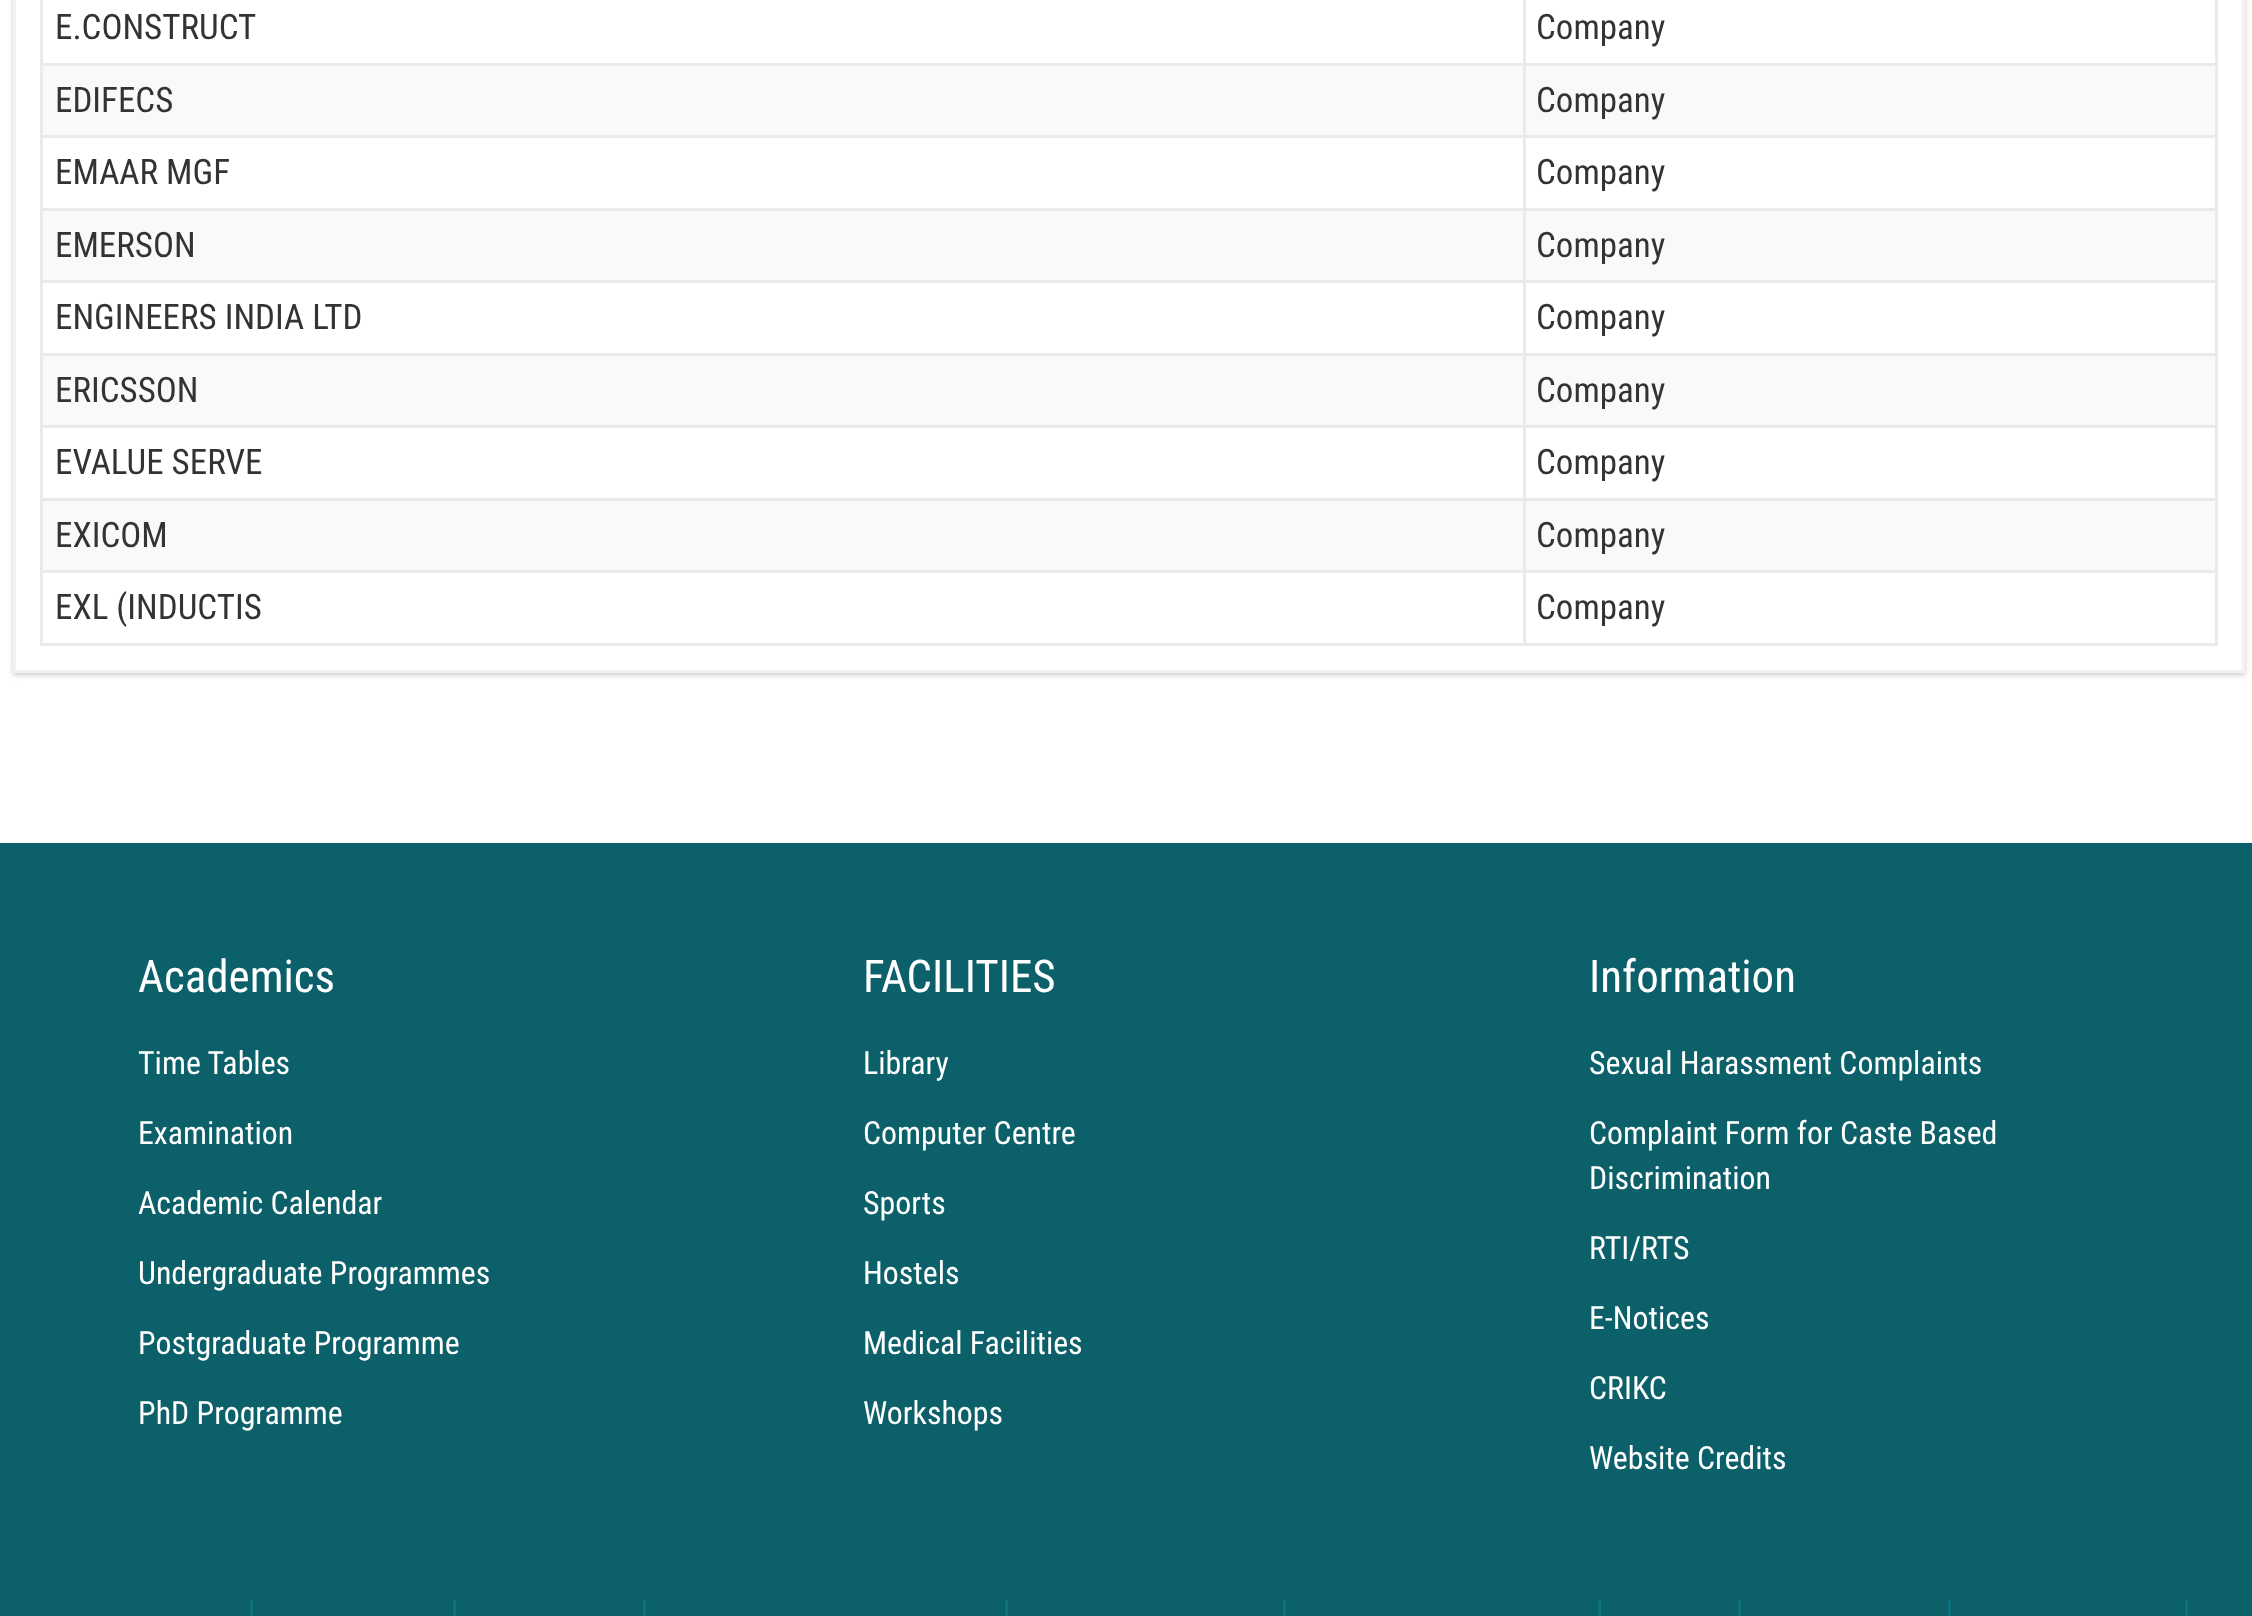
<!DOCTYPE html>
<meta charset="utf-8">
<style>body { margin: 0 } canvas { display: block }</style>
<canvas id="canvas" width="2252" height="1616"></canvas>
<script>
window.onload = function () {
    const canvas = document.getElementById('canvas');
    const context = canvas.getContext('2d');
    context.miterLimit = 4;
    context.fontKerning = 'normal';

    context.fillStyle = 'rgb(255, 255, 255)';
    context.fillRect(0, 0, 2252, 1616);
    context.save();
    context.beginPath();
    context.moveTo(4, 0);
    context.lineTo(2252, 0);
    context.lineTo(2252, 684);
    context.lineTo(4, 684);
    context.closePath();
    context.moveTo(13, -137);
    context.lineTo(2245, -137);
    context.lineTo(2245, 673);
    context.lineTo(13, 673);
    context.closePath();
    context.clip('evenodd');
    context.fillStyle = 'rgb(202, 202, 202)';
    context.filter = 'blur(2.5px)';
    context.beginPath();
    context.rect(13, -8, 2232, 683);
    context.fill();
    context.filter = 'none';
    context.restore();
    context.strokeStyle = 'rgb(242, 242, 242)';
    context.lineWidth = 3;
    context.strokeRect(14.5, -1.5, 2229, 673);
    context.fillStyle = 'rgb(234, 234, 234)';
    context.fillRect(1523, 63, 695, 3);
    context.fillStyle = 'rgb(249, 249, 249)';
    context.fillRect(43, 66, 2172, 69);
    context.fillStyle = 'rgb(234, 234, 234)';
    context.fillRect(1523, 135, 695, 3);
    context.fillRect(1523, 208, 695, 3);
    context.fillStyle = 'rgb(249, 249, 249)';
    context.fillRect(43, 211, 2172, 69);
    context.fillStyle = 'rgb(234, 234, 234)';
    context.fillRect(1523, 280, 695, 3);
    context.fillRect(1523, 353, 695, 3);
    context.fillStyle = 'rgb(249, 249, 249)';
    context.fillRect(43, 356, 2172, 69);
    context.fillStyle = 'rgb(234, 234, 234)';
    context.fillRect(1523, 425, 695, 3);
    context.fillRect(1523, 498, 695, 3);
    context.fillStyle = 'rgb(249, 249, 249)';
    context.fillRect(43, 501, 2172, 69);
    context.fillStyle = 'rgb(234, 234, 234)';
    context.fillRect(1523, 570, 695, 3);
    context.fillRect(2215, 570, 3, 75);
    context.fillRect(1523, 643, 695, 3);
    context.fillRect(1523, 570, 3, 75);
    context.fillRect(40, 570, 1485, 3);
    context.fillRect(1523, 498, 3, 75);
    context.fillRect(40, 498, 1485, 3);
    context.fillRect(1523, 425, 3, 75);
    context.fillRect(40, 425, 1485, 3);
    context.fillRect(1523, 353, 3, 75);
    context.fillRect(40, 353, 1485, 3);
    context.fillRect(1523, 280, 3, 75);
    context.fillRect(40, 280, 1485, 3);
    context.fillRect(1523, 208, 3, 75);
    context.fillRect(40, 208, 1485, 3);
    context.fillRect(1523, 135, 3, 75);
    context.fillRect(40, 135, 1485, 3);
    context.fillRect(1523, 63, 3, 75);
    context.fillRect(40, 63, 1485, 3);
    context.fillRect(1523, 0, 3, 65);
    context.fillRect(40, 643, 1485, 3);
    context.fillRect(40, 570, 3, 75);
    context.fillRect(40, 498, 3, 75);
    context.fillRect(40, 425, 3, 75);
    context.fillRect(40, 353, 3, 75);
    context.fillRect(40, 280, 3, 75);
    context.fillRect(40, 208, 3, 75);
    context.fillRect(40, 135, 3, 75);
    context.fillRect(40, 0, 3, 138);
    context.fillRect(2215, 498, 3, 75);
    context.fillRect(2215, 425, 3, 75);
    context.fillRect(2215, 353, 3, 75);
    context.fillRect(2215, 280, 3, 75);
    context.fillRect(2215, 208, 3, 75);
    context.fillRect(2215, 135, 3, 75);
    context.fillRect(2215, 0, 3, 138);
    context.fillStyle = 'rgb(12, 96, 106)';
    context.fillRect(0, 843, 2252, 773);
    context.fillStyle = 'rgb(11, 113, 125)';
    context.fillRect(250, 1600, 3, 16);
    context.fillRect(453, 1600, 3, 16);
    context.fillRect(643, 1600, 3, 16);
    context.fillRect(1005, 1600, 3, 16);
    context.fillRect(1283, 1600, 3, 16);
    context.fillRect(1598, 1600, 3, 16);
    context.fillRect(1738, 1600, 3, 16);
    context.fillRect(1948, 1600, 3, 16);
    context.fillRect(2185, 1600, 3, 16);
    context.font = '35px Roboto Condensed';
    context.fillStyle = 'rgb(51, 51, 51)';
    context.fillText('E.CONSTRUCT', 55, 39);
    context.fillText('Company', 1536, 39);
    context.fillText('EDIFECS', 55, 112);
    context.fillText('Company', 1536, 112);
    context.fillText('EMAAR MGF', 55, 184);
    context.fillText('Company', 1536, 184);
    context.fillText('EMERSON', 55, 257);
    context.fillText('Company', 1536, 257);
    context.fillText('ENGINEERS INDIA LTD', 55, 329);
    context.fillText('Company', 1536, 329);
    context.fillText('ERICSSON', 55, 402);
    context.fillText('Company', 1536, 402);
    context.fillText('EVALUE SERVE', 55, 474);
    context.fillText('Company', 1536, 474);
    context.fillText('EXICOM', 55, 547);
    context.fillText('Company', 1536, 547);
    context.fillText('EXL (INDUCTIS', 55, 619);
    context.fillText('Company', 1536, 619);
    context.font = '45px Roboto Condensed';
    context.fillStyle = 'rgb(255, 255, 255)';
    context.fillText('Academics', 138, 992);
    context.font = '31.9px Roboto Condensed';
    context.fillText('Time Tables', 138, 1074);
    context.fillText('Examination', 138, 1144);
    context.fillText('Academic Calendar', 138, 1214);
    context.fillText('Undergraduate Programmes', 138, 1284);
    context.fillText('Postgraduate Programme', 138, 1354);
    context.fillText('PhD Programme', 138, 1424);
    context.font = '45px Roboto Condensed';
    context.fillText('FACILITIES', 863, 992);
    context.font = '31.9px Roboto Condensed';
    context.fillText('Library', 863, 1074);
    context.fillText('Computer Centre', 863, 1144);
    context.fillText('Sports', 863, 1214);
    context.fillText('Hostels', 863, 1284);
    context.fillText('Medical Facilities', 863, 1354);
    context.fillText('Workshops', 863, 1424);
    context.font = '45px Roboto Condensed';
    context.fillText('Information', 1589, 992);
    context.font = '31.9px Roboto Condensed';
    context.fillText('Sexual Harassment Complaints', 1589, 1074);
    context.fillText('Complaint Form for Caste Based', 1589, 1144);
    context.fillText('Discrimination', 1589, 1189);
    context.fillText('RTI/RTS', 1589, 1259);
    context.fillText('E-Notices', 1589, 1329);
    context.fillText('CRIKC', 1589, 1399);
    context.fillText('Website Credits', 1589, 1469);
};
</script>
